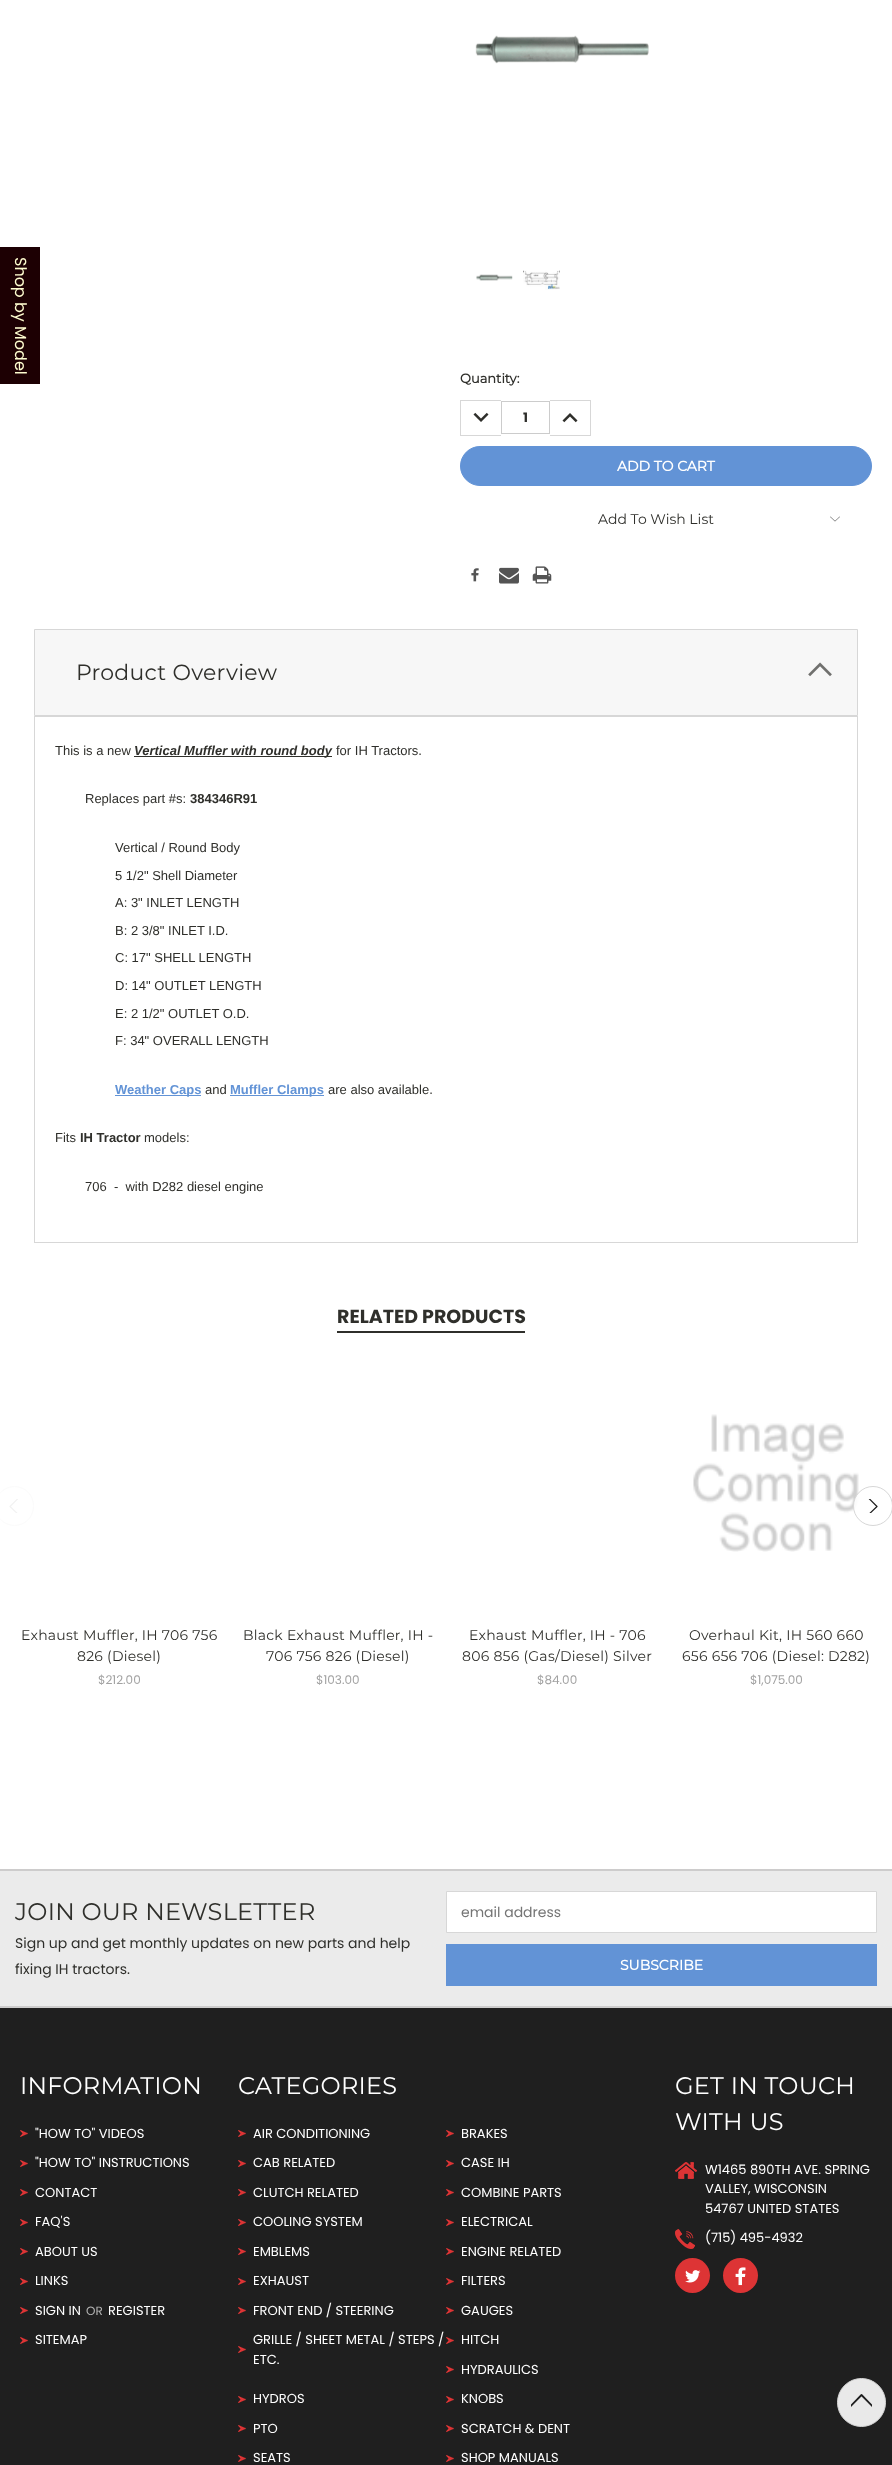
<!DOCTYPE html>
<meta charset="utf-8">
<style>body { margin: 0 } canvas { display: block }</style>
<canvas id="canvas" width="892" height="2465"></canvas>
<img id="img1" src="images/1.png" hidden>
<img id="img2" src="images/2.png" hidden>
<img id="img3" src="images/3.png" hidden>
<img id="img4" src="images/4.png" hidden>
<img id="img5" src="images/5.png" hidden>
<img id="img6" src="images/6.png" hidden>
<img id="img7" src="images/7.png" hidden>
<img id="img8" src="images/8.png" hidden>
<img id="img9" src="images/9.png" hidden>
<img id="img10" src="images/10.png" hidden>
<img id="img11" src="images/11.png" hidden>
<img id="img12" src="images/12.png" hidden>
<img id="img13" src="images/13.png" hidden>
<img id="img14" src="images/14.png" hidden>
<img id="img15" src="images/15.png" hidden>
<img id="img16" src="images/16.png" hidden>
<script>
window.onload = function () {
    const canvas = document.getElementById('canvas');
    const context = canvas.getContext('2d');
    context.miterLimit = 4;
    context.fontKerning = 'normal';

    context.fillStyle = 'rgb(255, 255, 255)';
    context.fillRect(0, 0, 892, 2465);
    context.fillStyle = 'rgb(29, 0, 3)';
    context.fillRect(0, 247, 40, 137);
    context.drawImage(document.getElementById('img1'), 475, 35, 174, 29);
    context.drawImage(document.getElementById('img2'), 476, 274, 37, 7);
    context.drawImage(document.getElementById('img3'), 523, 270, 37, 20);
    context.fillStyle = 'rgb(215, 215, 215)';
    context.fillRect(460, 400, 41, 1);
    context.fillRect(460, 435, 41, 1);
    context.fillRect(460, 400, 1, 36);
    context.drawImage(document.getElementById('img4'), 473, 412, 16, 10);
    context.strokeStyle = 'rgb(204, 204, 204)';
    context.strokeRect(501.5, 401.5, 48, 32);
    context.fillRect(550, 400, 41, 1);
    context.fillRect(590, 400, 1, 36);
    context.fillRect(550, 435, 41, 1);
    context.drawImage(document.getElementById('img5'), 562, 413, 16, 10);
    context.fillStyle = 'rgb(98, 147, 214)';
    context.beginPath();
    context.roundRect(460.5, 446.5, 411, 39, 19.5);
    context.fill();
    context.strokeStyle = 'rgb(98, 147, 214)';
    context.stroke();
    context.drawImage(document.getElementById('img6'), 830, 516, 10, 6);
    context.drawImage(document.getElementById('img7'), 471, 568, 8, 14);
    context.drawImage(document.getElementById('img8'), 499, 567, 20, 17);
    context.drawImage(document.getElementById('img9'), 532, 566, 20, 18);
    context.fillStyle = 'rgb(247, 247, 247)';
    context.beginPath();
    context.rect(34.5, 629.5, 823, 86);
    context.fill();
    context.strokeStyle = 'rgb(215, 215, 215)';
    context.stroke();
    context.drawImage(document.getElementById('img10'), 808, 662, 24, 15);
    context.strokeRect(34.5, 716.5, 823, 526);
    context.fillStyle = 'rgb(47, 47, 43)';
    context.fillRect(134, 756, 198, 1);
    context.fillStyle = 'rgb(98, 147, 214)';
    context.fillRect(115, 1095, 86, 1);
    context.fillRect(230, 1095, 94, 1);
    context.fillStyle = 'rgb(47, 47, 43)';
    context.fillRect(337, 1331, 188, 2);
    context.beginPath();
    context.roundRect(-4.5, 1486.5, 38, 39, 19);
    context.strokeStyle = 'rgb(251, 251, 251)';
    context.stroke();
    context.save();
    context.beginPath();
    context.rect(9, 1499, 14, 14);
    context.clip();
    context.beginPath();
    context.moveTo(22, 1494.5);
    context.lineTo(10, 1506.5);
    context.lineTo(22, 1518);
    context.strokeStyle = 'rgb(242, 242, 242)';
    context.lineWidth = 1.2;
    context.lineCap = 'round';
    context.lineJoin = 'round';
    context.stroke();
    context.restore();
    context.drawImage(document.getElementById('img11'), 693, 1414, 166, 138);
    context.fillStyle = 'rgba(255, 255, 255, 0.9)';
    context.beginPath();
    context.arc(873, 1506, 19.5, 0, 2 * Math.PI);
    context.fill();
    context.strokeStyle = 'rgb(215, 215, 215)';
    context.stroke();
    context.save();
    context.beginPath();
    context.rect(864, 1499, 14, 14);
    context.clip();
    context.beginPath();
    context.moveTo(865, 1494.5);
    context.lineTo(877, 1506.5);
    context.lineTo(865, 1518);
    context.strokeStyle = 'rgb(31, 31, 31)';
    context.lineWidth = 1.2;
    context.lineCap = 'round';
    context.lineJoin = 'round';
    context.stroke();
    context.restore();
    context.fillStyle = 'rgb(235, 235, 235)';
    context.fillRect(0, 1871, 892, 135);
    context.fillStyle = 'rgb(205, 204, 204)';
    context.fillRect(0, 1869, 892, 2);
    context.fillStyle = 'rgb(255, 255, 255)';
    context.beginPath();
    context.rect(446.5, 1891.5, 430, 41);
    context.fill();
    context.stroke();
    context.fillStyle = 'rgb(98, 147, 214)';
    context.fillRect(446, 1944, 431, 42);
    context.fillStyle = 'rgb(31, 31, 31)';
    context.fillRect(0, 2008, 892, 457);
    context.fillStyle = 'rgb(205, 204, 204)';
    context.fillRect(0, 2006, 892, 2);
    context.drawImage(document.getElementById('img12'), 20, 2130, 8, 7);
    context.drawImage(document.getElementById('img12'), 20, 2160, 8, 7);
    context.drawImage(document.getElementById('img12'), 20, 2189, 8, 7);
    context.drawImage(document.getElementById('img12'), 20, 2219, 8, 7);
    context.drawImage(document.getElementById('img12'), 20, 2248, 8, 7);
    context.drawImage(document.getElementById('img12'), 20, 2278, 8, 7);
    context.drawImage(document.getElementById('img12'), 20, 2307, 8, 7);
    context.drawImage(document.getElementById('img12'), 20, 2337, 8, 7);
    context.drawImage(document.getElementById('img12'), 238, 2130, 8, 7);
    context.drawImage(document.getElementById('img12'), 446, 2130, 8, 7);
    context.drawImage(document.getElementById('img12'), 238, 2160, 8, 7);
    context.drawImage(document.getElementById('img12'), 446, 2160, 8, 7);
    context.drawImage(document.getElementById('img12'), 238, 2189, 8, 7);
    context.drawImage(document.getElementById('img12'), 446, 2189, 8, 7);
    context.drawImage(document.getElementById('img12'), 238, 2219, 8, 7);
    context.drawImage(document.getElementById('img12'), 446, 2219, 8, 7);
    context.drawImage(document.getElementById('img12'), 238, 2248, 8, 7);
    context.drawImage(document.getElementById('img12'), 446, 2248, 8, 7);
    context.drawImage(document.getElementById('img12'), 238, 2278, 8, 7);
    context.drawImage(document.getElementById('img12'), 446, 2278, 8, 7);
    context.drawImage(document.getElementById('img12'), 238, 2307, 8, 7);
    context.drawImage(document.getElementById('img12'), 446, 2307, 8, 7);
    context.drawImage(document.getElementById('img12'), 238, 2346, 8, 7);
    context.drawImage(document.getElementById('img12'), 446, 2337, 8, 7);
    context.drawImage(document.getElementById('img12'), 446, 2366, 8, 7);
    context.drawImage(document.getElementById('img12'), 238, 2396, 8, 7);
    context.drawImage(document.getElementById('img12'), 446, 2396, 8, 7);
    context.drawImage(document.getElementById('img12'), 238, 2425, 8, 7);
    context.drawImage(document.getElementById('img12'), 446, 2425, 8, 7);
    context.drawImage(document.getElementById('img12'), 238, 2455, 8, 7);
    context.drawImage(document.getElementById('img12'), 446, 2455, 8, 7);
    context.drawImage(document.getElementById('img13'), 675, 2162, 22, 17);
    context.drawImage(document.getElementById('img14'), 675, 2229, 20, 20);
    context.fillStyle = 'rgb(221, 52, 53)';
    context.beginPath();
    context.arc(692.5, 2275.5, 17.5, 0, 2 * Math.PI);
    context.fill();
    context.drawImage(document.getElementById('img15'), 685, 2270, 16, 13);
    context.beginPath();
    context.arc(740.5, 2275.5, 17.5, 0, 2 * Math.PI);
    context.fill();
    context.drawImage(document.getElementById('img16'), 735, 2267, 11, 19);
    context.fillStyle = 'rgb(233, 233, 233)';
    context.beginPath();
    context.arc(861.5, 2402.5, 24, 0, 2 * Math.PI);
    context.fill();
    context.stroke();
    context.save();
    context.beginPath();
    context.moveTo(872, 2393.5);
    context.lineTo(872, 2414.5);
    context.lineTo(851, 2414.5);
    context.lineTo(851, 2393.5);
    context.closePath();
    context.clip();
    context.beginPath();
    context.moveTo(879, 2413);
    context.lineTo(861.5, 2395);
    context.lineTo(844, 2413);
    context.strokeStyle = 'rgb(31, 31, 31)';
    context.lineWidth = 1.8;
    context.lineCap = 'round';
    context.lineJoin = 'round';
    context.stroke();
    context.restore();
    context.font = '16px Poppins';
    context.fillStyle = 'rgb(255, 253, 208)';
    context.save();
    context.translate(15, 257);
    context.rotate(90 * Math.PI / 180);
    context.fillText('Shop by Model', 0, 0);
    context.restore();
    context.font = 'bold 13px Montserrat';
    context.fillStyle = 'rgb(47, 47, 43)';
    context.fillText('Quantity:', 460, 383);
    context.font = 'bold 13px Poppins';
    context.fillText('1', 523, 422);
    context.font = 'bold 14px Montserrat';
    context.fillStyle = 'rgb(255, 255, 255)';
    context.fillText('ADD TO CART', 617, 471);
    context.font = '100 14px Montserrat';
    context.fillStyle = 'rgb(47, 47, 43)';
    context.fillText('Add To Wish List', 598, 524);
    context.letterSpacing = '0.25px';
    context.font = '100 22px Montserrat';
    context.fillText('Product Overview', 76, 680);
    context.letterSpacing = '0px';
    context.font = '13px Liberation Sans';
    context.fillText('This is a new', 55, 755);
    context.font = 'italic bold 13px Liberation Sans';
    context.fillText('Vertical Muffler with round body', 134, 755);
    context.font = '13px Liberation Sans';
    context.fillText('for IH Tractors.', 336, 755);
    context.fillText('Replaces part #s:', 85, 803);
    context.font = 'bold 13px Liberation Sans';
    context.fillText('384346R91', 190, 803);
    context.font = '13px Liberation Sans';
    context.fillText('Vertical / Round Body', 115, 852);
    context.fillText('5 1/2" Shell Diameter', 115, 880);
    context.fillText('A: 3" INLET LENGTH', 115, 907);
    context.fillText('B: 2 3/8" INLET I.D.', 115, 935);
    context.fillText('C: 17" SHELL LENGTH', 115, 962);
    context.fillText('D: 14" OUTLET LENGTH', 115, 990);
    context.fillText('E: 2 1/2" OUTLET O.D.', 115, 1018);
    context.fillText('F: 34" OVERALL LENGTH', 115, 1045);
    context.font = 'bold 13px Liberation Sans';
    context.fillStyle = 'rgb(98, 147, 214)';
    context.fillText('Weather Caps', 115, 1094);
    context.font = '13px Liberation Sans';
    context.fillStyle = 'rgb(47, 47, 43)';
    context.fillText('and', 205, 1094);
    context.font = 'bold 13px Liberation Sans';
    context.fillStyle = 'rgb(98, 147, 214)';
    context.fillText('Muffler Clamps', 230, 1094);
    context.font = '13px Liberation Sans';
    context.fillStyle = 'rgb(47, 47, 43)';
    context.fillText('are also available.', 328, 1094);
    context.fillText('Fits', 55, 1142);
    context.font = 'bold 13px Liberation Sans';
    context.fillText('IH Tractor', 80, 1142);
    context.font = '13px Liberation Sans';
    context.fillText('models:', 144, 1142);
    context.fillText('706  -  with D282 diesel engine', 85, 1191);
    context.font = 'bold 19px Poppins';
    context.fillText('RELATED PRODUCTS', 337, 1323);
    context.letterSpacing = '0.25px';
    context.font = '100 14px Montserrat';
    context.fillText('Exhaust Muffler, IH 706 756', 21, 1640);
    context.fillText('826 (Diesel)', 77, 1661);
    context.letterSpacing = '0px';
    context.font = '12px Poppins';
    context.fillStyle = 'rgb(162, 162, 162)';
    context.fillText('$212.00', 98, 1684);
    context.letterSpacing = '0.25px';
    context.font = '100 14px Montserrat';
    context.fillStyle = 'rgb(47, 47, 43)';
    context.fillText('Black Exhaust Muffler, IH -', 243, 1640);
    context.fillText('706 756 826 (Diesel)', 266, 1661);
    context.letterSpacing = '0px';
    context.font = '12px Poppins';
    context.fillStyle = 'rgb(162, 162, 162)';
    context.fillText('$103.00', 316, 1684);
    context.letterSpacing = '0.25px';
    context.font = '100 14px Montserrat';
    context.fillStyle = 'rgb(47, 47, 43)';
    context.fillText('Exhaust Muffler, IH - 706', 469, 1640);
    context.fillText('806 856 (Gas/Diesel) Silver', 462, 1661);
    context.letterSpacing = '0px';
    context.font = '12px Poppins';
    context.fillStyle = 'rgb(162, 162, 162)';
    context.fillText('$84.00', 537, 1684);
    context.letterSpacing = '0.25px';
    context.font = '100 14px Montserrat';
    context.fillStyle = 'rgb(47, 47, 43)';
    context.fillText('Overhaul Kit, IH 560 660', 689, 1640);
    context.fillText('656 656 706 (Diesel: D282)', 682, 1661);
    context.letterSpacing = '0px';
    context.font = '12px Poppins';
    context.fillStyle = 'rgb(162, 162, 162)';
    context.fillText('$1,075.00', 750, 1684);
    context.letterSpacing = '0.25px';
    context.font = '100 24px Montserrat';
    context.fillStyle = 'rgb(47, 47, 43)';
    context.fillText('JOIN OUR NEWSLETTER', 15, 1920);
    context.letterSpacing = '0px';
    context.font = '14px Poppins';
    context.fillText('Sign up and get monthly updates on new parts and help', 15, 1948);
    context.fillText('fixing IH tractors.', 15, 1974);
    context.fillStyle = 'rgb(117, 117, 117)';
    context.fillText('email address', 461, 1917);
    context.font = 'bold 14px Montserrat';
    context.fillStyle = 'rgb(255, 255, 255)';
    context.fillText('SUBSCRIBE', 620, 1970);
    context.letterSpacing = '0.25px';
    context.font = '100 24px Montserrat';
    context.fillText('INFORMATION', 20, 2094);
    context.letterSpacing = '0px';
    context.font = '13px Poppins';
    context.fillText('"HOW TO" VIDEOS', 35, 2138);
    context.fillText('"HOW TO" INSTRUCTIONS', 35, 2167);
    context.fillText('CONTACT', 35, 2197);
    context.fillText('FAQ\'S', 35, 2226);
    context.fillText('ABOUT US', 35, 2256);
    context.fillText('LINKS', 35, 2285);
    context.fillText('SIGN IN', 35, 2315);
    context.font = '12px Poppins';
    context.fillStyle = 'rgb(178, 178, 178)';
    context.fillText('OR', 86, 2315);
    context.font = '13px Poppins';
    context.fillStyle = 'rgb(255, 255, 255)';
    context.fillText('REGISTER', 108, 2315);
    context.fillText('SITEMAP', 35, 2344);
    context.letterSpacing = '0.25px';
    context.font = '100 24px Montserrat';
    context.fillText('CATEGORIES', 238, 2094);
    context.letterSpacing = '0px';
    context.font = '13px Poppins';
    context.fillText('AIR CONDITIONING', 253, 2138);
    context.fillText('BRAKES', 461, 2138);
    context.fillText('CAB RELATED', 253, 2167);
    context.fillText('CASE IH', 461, 2167);
    context.fillText('CLUTCH RELATED', 253, 2197);
    context.fillText('COMBINE PARTS', 461, 2197);
    context.fillText('COOLING SYSTEM', 253, 2226);
    context.fillText('ELECTRICAL', 461, 2226);
    context.fillText('EMBLEMS', 253, 2256);
    context.fillText('ENGINE RELATED', 461, 2256);
    context.fillText('EXHAUST', 253, 2285);
    context.fillText('FILTERS', 461, 2285);
    context.fillText('FRONT END / STEERING', 253, 2315);
    context.fillText('GAUGES', 461, 2315);
    context.fillText('GRILLE / SHEET METAL / STEPS /', 253, 2344);
    context.fillText('ETC.', 253, 2364);
    context.fillText('HITCH', 461, 2344);
    context.fillText('HYDRAULICS', 461, 2374);
    context.fillText('HYDROS', 253, 2403);
    context.fillText('KNOBS', 461, 2403);
    context.fillText('PTO', 253, 2433);
    context.fillText('SCRATCH & DENT', 461, 2433);
    context.fillText('SEATS', 253, 2462);
    context.fillText('SHOP MANUALS', 461, 2462);
    context.letterSpacing = '0.25px';
    context.font = '100 24px Montserrat';
    context.fillText('GET IN TOUCH', 675, 2094);
    context.fillText('WITH US', 675, 2130);
    context.letterSpacing = '0px';
    context.font = '13px Poppins';
    context.fillText('W1465 890TH AVE. SPRING', 705, 2174);
    context.fillText('VALLEY, WISCONSIN', 705, 2193);
    context.fillText('54767 UNITED STATES', 705, 2213);
    context.fillText('(715) 495-4932', 705, 2242);
};
</script>
